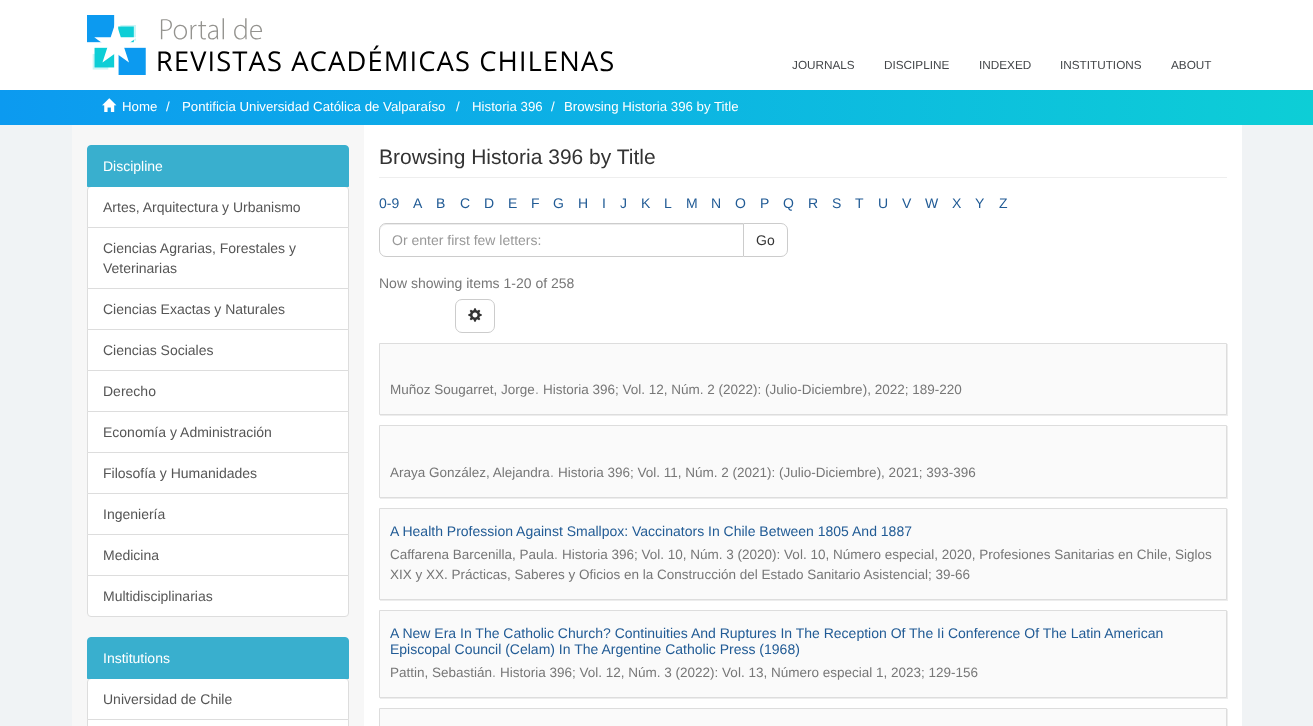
<!DOCTYPE html>
<meta charset="utf-8">
<style>body { margin: 0 } canvas { display: block }</style>
<canvas id="canvas" width="1313" height="726"></canvas>
<img id="img1" src="images/1.png" hidden>
<img id="img2" src="images/2.png" hidden>
<img id="img3" src="images/3.png" hidden>
<script>
window.onload = function () {
    const canvas = document.getElementById('canvas');
    const context = canvas.getContext('2d');
    context.miterLimit = 4;
    context.fontKerning = 'normal';
    let gradient;

    context.fillStyle = 'rgb(240, 243, 245)';
    context.fillRect(0, 0, 1313, 726);
    context.fillStyle = 'rgb(255, 255, 255)';
    context.fillRect(0, 0, 1313, 90);
    context.drawImage(document.getElementById('img1'), 87, 15, 526, 60);
    gradient = context.createLinearGradient(0, 108, 1313, 107);
    gradient.addColorStop(0, 'rgb(12, 154, 240)');
    gradient.addColorStop(1, 'rgb(13, 206, 214)');
    context.fillStyle = gradient;
    context.fillRect(0, 90, 1313, 35);
    context.drawImage(document.getElementById('img2'), 102, 98, 15, 14);
    context.fillStyle = 'rgb(247, 247, 247)';
    context.fillRect(72, 125, 292, 601);
    context.fillStyle = 'rgb(255, 255, 255)';
    context.beginPath();
    context.roundRect(87.5, 186.5, 261, 41, [3.5, 3.5, 0, 0]);
    context.fill();
    context.strokeStyle = 'rgb(221, 221, 221)';
    context.stroke();
    context.fillStyle = 'rgb(57, 175, 206)';
    context.beginPath();
    context.roundRect(87.5, 145.5, 261, 41, [3.5, 3.5, 0, 0]);
    context.fill();
    context.strokeStyle = 'rgb(57, 175, 206)';
    context.stroke();
    context.fillStyle = 'rgb(255, 255, 255)';
    context.beginPath();
    context.rect(87.5, 227.5, 261, 61);
    context.fill();
    context.strokeStyle = 'rgb(221, 221, 221)';
    context.stroke();
    context.beginPath();
    context.rect(87.5, 288.5, 261, 41);
    context.fill();
    context.stroke();
    context.beginPath();
    context.rect(87.5, 329.5, 261, 41);
    context.fill();
    context.stroke();
    context.beginPath();
    context.rect(87.5, 370.5, 261, 41);
    context.fill();
    context.stroke();
    context.beginPath();
    context.rect(87.5, 411.5, 261, 41);
    context.fill();
    context.stroke();
    context.beginPath();
    context.rect(87.5, 452.5, 261, 41);
    context.fill();
    context.stroke();
    context.beginPath();
    context.rect(87.5, 493.5, 261, 41);
    context.fill();
    context.stroke();
    context.beginPath();
    context.rect(87.5, 534.5, 261, 41);
    context.fill();
    context.stroke();
    context.beginPath();
    context.roundRect(87.5, 575.5, 261, 41, [0, 0, 3.5, 3.5]);
    context.fill();
    context.stroke();
    context.beginPath();
    context.roundRect(87.5, 678.5, 261, 41, [3.5, 3.5, 0, 0]);
    context.fill();
    context.stroke();
    context.fillStyle = 'rgb(57, 175, 206)';
    context.beginPath();
    context.roundRect(87.5, 637.5, 261, 41, [3.5, 3.5, 0, 0]);
    context.fill();
    context.strokeStyle = 'rgb(57, 175, 206)';
    context.stroke();
    context.fillStyle = 'rgb(255, 255, 255)';
    context.beginPath();
    context.rect(87.5, 719.5, 261, 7);
    context.fill();
    context.strokeStyle = 'rgb(221, 221, 221)';
    context.stroke();
    context.fillRect(364, 125, 878, 601);
    context.fillStyle = 'rgb(238, 238, 238)';
    context.fillRect(379, 177, 848, 1);
    context.beginPath();
    context.roundRect(743.5, 223.5, 44, 33, [0, 6.5, 6.5, 0]);
    context.strokeStyle = 'rgb(204, 204, 204)';
    context.stroke();
    context.fillStyle = 'rgb(255, 255, 255)';
    context.beginPath();
    context.roundRect(379, 223, 365, 34, [7, 0, 0, 7]);
    context.fill();
    context.fillStyle = 'rgb(236, 236, 236)';
    context.beginPath();
    context.moveTo(386, 225);
    context.lineTo(743, 225);
    context.lineTo(743, 224);
    context.lineTo(386, 224);
    context.bezierCurveTo(382, 224, 380, 227, 380, 231);
    context.bezierCurveTo(380, 228, 383, 225, 386, 225);
    context.closePath();
    context.fill();
    context.beginPath();
    context.roundRect(379.5, 223.5, 364, 33, [6.5, 0, 0, 6.5]);
    context.stroke();
    context.beginPath();
    context.roundRect(455.5, 299.5, 39, 33, 6.5);
    context.stroke();
    context.drawImage(document.getElementById('img3'), 468, 308, 14, 14);
    context.fillStyle = 'rgba(170, 170, 170, 0.21)';
    context.filter = 'blur(0.5px)';
    context.beginPath();
    context.rect(380, 344, 848, 72);
    context.fill();
    context.filter = 'none';
    context.fillStyle = 'rgb(250, 250, 250)';
    context.beginPath();
    context.rect(379.5, 343.5, 847, 71);
    context.fill();
    context.strokeStyle = 'rgb(221, 221, 221)';
    context.stroke();
    context.fillStyle = 'rgba(170, 170, 170, 0.21)';
    context.filter = 'blur(0.5px)';
    context.beginPath();
    context.rect(380, 426, 848, 73);
    context.fill();
    context.filter = 'none';
    context.fillStyle = 'rgb(250, 250, 250)';
    context.beginPath();
    context.rect(379.5, 425.5, 847, 72);
    context.fill();
    context.stroke();
    context.fillStyle = 'rgba(170, 170, 170, 0.21)';
    context.filter = 'blur(0.5px)';
    context.beginPath();
    context.rect(380, 509, 848, 92);
    context.fill();
    context.filter = 'none';
    context.fillStyle = 'rgb(250, 250, 250)';
    context.beginPath();
    context.rect(379.5, 508.5, 847, 91);
    context.fill();
    context.stroke();
    context.fillStyle = 'rgba(170, 170, 170, 0.21)';
    context.filter = 'blur(0.5px)';
    context.beginPath();
    context.rect(380, 611, 848, 88);
    context.fill();
    context.filter = 'none';
    context.fillStyle = 'rgb(250, 250, 250)';
    context.beginPath();
    context.rect(379.5, 610.5, 847, 87);
    context.fill();
    context.stroke();
    context.fillStyle = 'rgba(170, 170, 170, 0.21)';
    context.filter = 'blur(0.5px)';
    context.beginPath();
    context.rect(380, 709, 848, 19);
    context.fill();
    context.filter = 'none';
    context.fillStyle = 'rgb(250, 250, 250)';
    context.beginPath();
    context.rect(379.5, 708.5, 847, 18);
    context.fill();
    context.stroke();
    context.font = '11.75px Liberation Sans';
    context.fillStyle = 'rgb(68, 71, 74)';
    context.fillText('JOURNALS', 792, 69);
    context.fillText('DISCIPLINE', 884, 69);
    context.fillText('INDEXED', 979, 69);
    context.fillText('INSTITUTIONS', 1060, 69);
    context.fillText('ABOUT', 1171, 69);
    context.font = '13.25px Liberation Sans';
    context.fillStyle = 'rgb(255, 255, 255)';
    context.fillText('Home', 122, 111);
    context.fillText('/', 166, 111);
    context.fillText('Pontificia Universidad Católica de Valparaíso', 182, 111);
    context.fillText('/', 456, 111);
    context.fillText('Historia 396', 472, 111);
    context.fillText('/', 551, 111);
    context.fillText('Browsing Historia 396 by Title', 564, 111);
    context.font = '14px Liberation Sans';
    context.fillText('Discipline', 103, 171);
    context.fillStyle = 'rgb(85, 85, 85)';
    context.fillText('Artes, Arquitectura y Urbanismo', 103, 212);
    context.fillText('Ciencias Agrarias, Forestales y', 103, 253);
    context.fillText('Veterinarias', 103, 273);
    context.fillText('Ciencias Exactas y Naturales', 103, 314);
    context.fillText('Ciencias Sociales', 103, 355);
    context.fillText('Derecho', 103, 396);
    context.fillText('Economía y Administración', 103, 437);
    context.fillText('Filosofía y Humanidades', 103, 478);
    context.fillText('Ingeniería', 103, 519);
    context.fillText('Medicina', 103, 560);
    context.fillText('Multidisciplinarias', 103, 601);
    context.fillStyle = 'rgb(255, 255, 255)';
    context.fillText('Institutions', 103, 663);
    context.fillStyle = 'rgb(85, 85, 85)';
    context.fillText('Universidad de Chile', 103, 704);
    context.font = '21px Liberation Sans';
    context.fillStyle = 'rgb(51, 51, 51)';
    context.fillText('Browsing Historia 396 by Title', 379, 164);
    context.font = '14px Liberation Sans';
    context.fillStyle = 'rgb(33, 91, 149)';
    context.fillText('0-9', 379, 208);
    context.fillText('A', 413, 208);
    context.fillText('B', 436, 208);
    context.fillText('C', 460, 208);
    context.fillText('D', 484, 208);
    context.fillText('E', 508, 208);
    context.fillText('F', 531, 208);
    context.fillText('G', 553, 208);
    context.fillText('H', 578, 208);
    context.fillText('I', 602, 208);
    context.fillText('J', 620, 208);
    context.fillText('K', 641, 208);
    context.fillText('L', 664, 208);
    context.fillText('M', 686, 208);
    context.fillText('N', 711, 208);
    context.fillText('O', 735, 208);
    context.fillText('P', 760, 208);
    context.fillText('Q', 783, 208);
    context.fillText('R', 808, 208);
    context.fillText('S', 832, 208);
    context.fillText('T', 855, 208);
    context.fillText('U', 878, 208);
    context.fillText('V', 902, 208);
    context.fillText('W', 925, 208);
    context.fillText('X', 952, 208);
    context.fillText('Y', 975, 208);
    context.fillText('Z', 999, 208);
    context.fillStyle = 'rgb(153, 153, 153)';
    context.fillText('Or enter first few letters:', 392, 245);
    context.fillStyle = 'rgb(51, 51, 51)';
    context.fillText('Go', 756, 245);
    context.fillStyle = 'rgb(119, 119, 119)';
    context.fillText('Now showing items 1-20 of 258', 379, 288);
    context.font = '13.5px Liberation Sans';
    context.fillText('Muñoz Sougarret, Jorge', 390, 394);
    context.font = '14px Liberation Sans';
    context.fillStyle = 'rgb(153, 153, 153)';
    context.fillText('.', 535, 394);
    context.font = '13.5px Liberation Sans';
    context.fillStyle = 'rgb(119, 119, 119)';
    context.fillText('Historia 396; Vol. 12, Núm. 2 (2022): (Julio-Diciembre), 2022; 189-220', 543, 394);
    context.fillText('Araya González, Alejandra', 390, 477);
    context.font = '14px Liberation Sans';
    context.fillStyle = 'rgb(153, 153, 153)';
    context.fillText('.', 550, 477);
    context.font = '13.5px Liberation Sans';
    context.fillStyle = 'rgb(119, 119, 119)';
    context.fillText('Historia 396; Vol. 11, Núm. 2 (2021): (Julio-Diciembre), 2021; 393-396', 558, 477);
    context.font = '14px Liberation Sans';
    context.fillStyle = 'rgb(33, 91, 149)';
    context.fillText('A Health Profession Against Smallpox: Vaccinators In Chile Between 1805 And 1887', 390, 536);
    context.font = '13.5px Liberation Sans';
    context.fillStyle = 'rgb(119, 119, 119)';
    context.fillText('Caffarena Barcenilla, Paula', 390, 559);
    context.font = '14px Liberation Sans';
    context.fillStyle = 'rgb(153, 153, 153)';
    context.fillText('.', 554, 559);
    context.font = '13.5px Liberation Sans';
    context.fillStyle = 'rgb(119, 119, 119)';
    context.fillText('Historia 396; Vol. 10, Núm. 3 (2020): Vol. 10, Número especial, 2020, Profesiones Sanitarias en Chile, Siglos', 562, 559);
    context.fillText('XIX y XX. Prácticas, Saberes y Oficios en la Construcción del Estado Sanitario Asistencial; 39-66', 390, 579);
    context.font = '14px Liberation Sans';
    context.fillStyle = 'rgb(33, 91, 149)';
    context.fillText('A New Era In The Catholic Church? Continuities And Ruptures In The Reception Of The Ii Conference Of The Latin American', 390, 638);
    context.fillText('Episcopal Council (Celam) In The Argentine Catholic Press (1968)', 390, 654);
    context.font = '13.5px Liberation Sans';
    context.fillStyle = 'rgb(119, 119, 119)';
    context.fillText('Pattin, Sebastián', 390, 677);
    context.font = '14px Liberation Sans';
    context.fillStyle = 'rgb(153, 153, 153)';
    context.fillText('.', 492, 677);
    context.font = '13.5px Liberation Sans';
    context.fillStyle = 'rgb(119, 119, 119)';
    context.fillText('Historia 396; Vol. 12, Núm. 3 (2022): Vol. 13, Número especial 1, 2023; 129-156', 500, 677);
};
</script>
